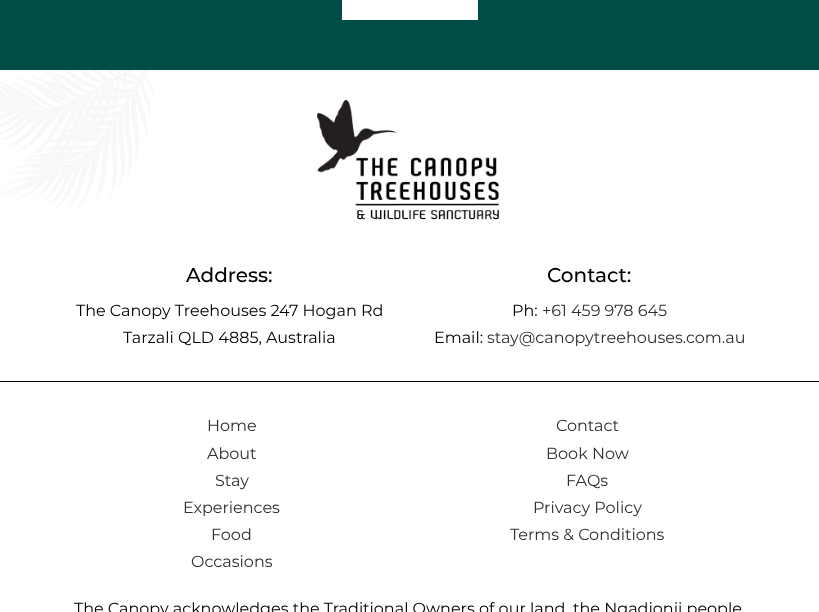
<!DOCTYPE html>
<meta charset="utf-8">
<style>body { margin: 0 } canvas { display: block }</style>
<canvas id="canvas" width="819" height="612"></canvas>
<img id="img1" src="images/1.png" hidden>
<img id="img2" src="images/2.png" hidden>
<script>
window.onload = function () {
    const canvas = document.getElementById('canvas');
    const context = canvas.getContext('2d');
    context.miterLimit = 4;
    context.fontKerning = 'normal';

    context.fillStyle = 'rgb(255, 255, 255)';
    context.fillRect(0, 0, 819, 612);
    context.fillStyle = 'rgb(0, 76, 70)';
    context.fillRect(0, 0, 819, 70);
    context.fillStyle = 'rgb(255, 255, 255)';
    context.fillRect(342, 0, 136, 20);
    context.drawImage(document.getElementById('img1'), 0, 70, 154, 137);
    context.fillStyle = 'rgb(0, 0, 0)';
    context.fillRect(0, 381, 819, 1);
    context.drawImage(document.getElementById('img2'), 317, 100, 183, 120);
    context.font = '500 20px Montserrat';
    context.fillText('Address:', 186, 282);
    context.font = '16px Montserrat';
    context.fillText('The Canopy Treehouses 247 Hogan Rd', 76, 316);
    context.fillText('Tarzali QLD 4885, Australia', 123, 343);
    context.font = '500 20px Montserrat';
    context.fillText('Contact:', 547, 282);
    context.font = '16px Montserrat';
    context.fillText('Ph:', 512, 316);
    context.fillStyle = 'rgb(48, 48, 48)';
    context.fillText('+61 459 978 645', 542, 316);
    context.fillStyle = 'rgb(0, 0, 0)';
    context.fillText('Email:', 434, 343);
    context.fillStyle = 'rgb(48, 48, 48)';
    context.fillText('stay@canopytreehouses.com.au', 487, 343);
    context.fillText('Home', 207, 431);
    context.fillText('Contact', 556, 431);
    context.fillText('About', 207, 459);
    context.fillText('Book Now', 546, 459);
    context.fillText('Stay', 215, 486);
    context.fillText('FAQs', 566, 486);
    context.fillText('Experiences', 183, 513);
    context.fillText('Privacy Policy', 533, 513);
    context.fillText('Food', 211, 540);
    context.fillText('Terms & Conditions', 510, 540);
    context.fillText('Occasions', 191, 567);
    context.fillStyle = 'rgb(0, 0, 0)';
    context.fillText('The Canopy acknowledges the Traditional Owners of our land, the Ngadjonji people', 74, 614);
};
</script>
